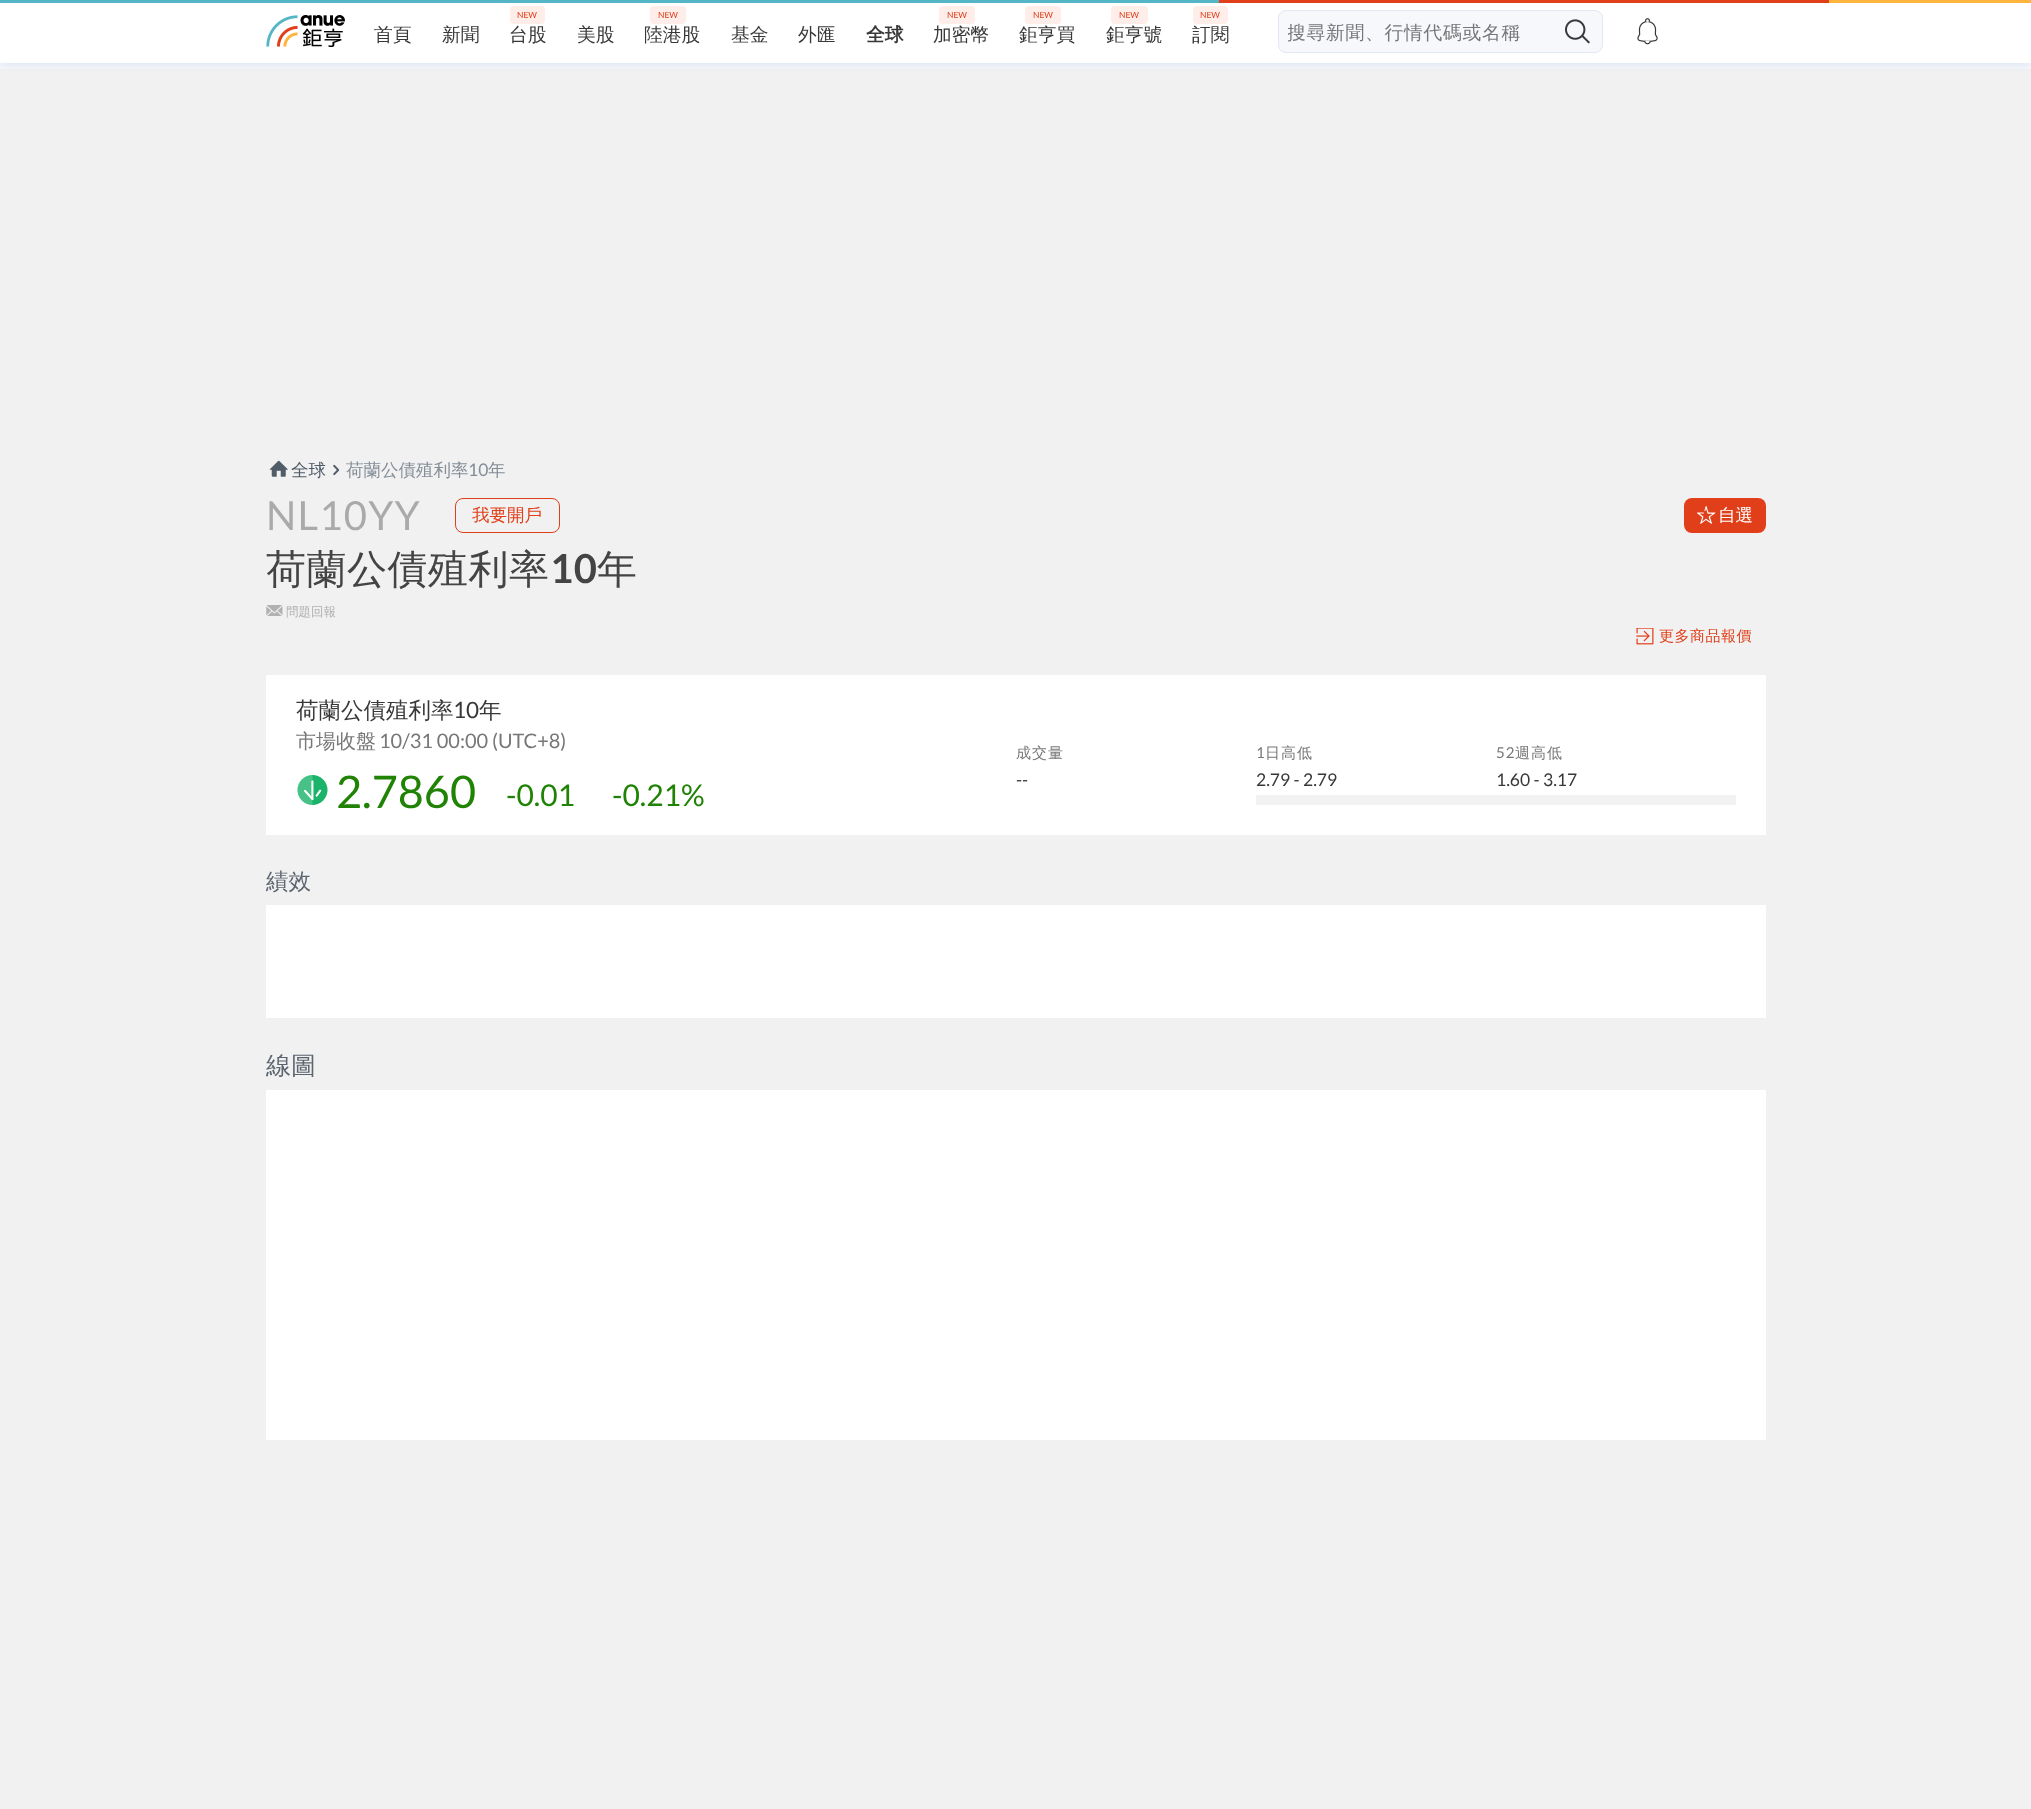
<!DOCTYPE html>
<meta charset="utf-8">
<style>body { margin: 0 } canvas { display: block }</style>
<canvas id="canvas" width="2031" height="1809"></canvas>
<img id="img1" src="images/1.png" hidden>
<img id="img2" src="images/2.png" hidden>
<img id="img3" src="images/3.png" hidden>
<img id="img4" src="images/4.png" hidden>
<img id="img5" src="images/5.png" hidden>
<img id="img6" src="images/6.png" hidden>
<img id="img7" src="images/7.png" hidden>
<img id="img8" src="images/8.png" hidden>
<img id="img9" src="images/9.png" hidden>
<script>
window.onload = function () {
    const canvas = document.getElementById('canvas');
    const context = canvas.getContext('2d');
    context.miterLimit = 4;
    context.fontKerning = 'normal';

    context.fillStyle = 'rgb(241, 241, 241)';
    context.fillRect(0, 0, 2031, 1809);
    context.fillStyle = 'rgb(246, 248, 252)';
    context.fillRect(0, 63, 2031, 6);
    context.fillStyle = 'rgba(0, 65, 143, 0.1)';
    context.filter = 'blur(4px)';
    context.beginPath();
    context.rect(0, 3, 2031, 62);
    context.fill();
    context.filter = 'none';
    context.fillStyle = 'rgb(255, 255, 255)';
    context.fillRect(0, 3, 2031, 60);
    context.fillStyle = 'rgb(84, 181, 198)';
    context.fillRect(0, 0, 1219, 3);
    context.fillStyle = 'rgb(224, 63, 25)';
    context.fillRect(1219, 0, 610, 3);
    context.fillStyle = 'rgb(255, 180, 62)';
    context.fillRect(1829, 0, 202, 3);
    context.drawImage(document.getElementById('img1'), 266, 15, 79, 32);
    context.fillStyle = 'rgb(254, 237, 233)';
    context.beginPath();
    context.roundRect(510, 6, 35, 18, 4);
    context.fill();
    context.beginPath();
    context.roundRect(650, 6, 36, 18, 4);
    context.fill();
    context.beginPath();
    context.roundRect(939, 6, 36, 18, 4);
    context.fill();
    context.beginPath();
    context.roundRect(1025, 6, 36, 18, 4);
    context.fill();
    context.beginPath();
    context.roundRect(1111, 6, 37, 18, 4);
    context.fill();
    context.beginPath();
    context.roundRect(1193, 6, 35, 18, 4);
    context.fill();
    context.fillStyle = 'rgb(246, 248, 252)';
    context.beginPath();
    context.roundRect(1278.5, 10.5, 324, 42, 7.5);
    context.fill();
    context.strokeStyle = 'rgb(226, 232, 241)';
    context.stroke();
    context.drawImage(document.getElementById('img2'), 1565, 19, 25, 25);
    context.drawImage(document.getElementById('img3'), 1637, 18, 21, 27);
    context.drawImage(document.getElementById('img4'), 269, 460, 19, 17);
    context.drawImage(document.getElementById('img5'), 333, 464, 7, 12);
    context.beginPath();
    context.roundRect(455.5, 498.5, 104, 34, 7.5);
    context.strokeStyle = 'rgb(224, 63, 25)';
    context.stroke();
    context.fillStyle = 'rgb(224, 63, 25)';
    context.beginPath();
    context.roundRect(1684, 498, 82, 35, 8);
    context.fill();
    context.drawImage(document.getElementById('img6'), 1697, 506, 19, 18);
    context.drawImage(document.getElementById('img7'), 266, 605, 17, 11);
    context.drawImage(document.getElementById('img8'), 1636, 628, 18, 17);
    context.fillStyle = 'rgb(255, 255, 255)';
    context.fillRect(266, 675, 1500, 160);
    context.drawImage(document.getElementById('img9'), 297, 775, 31, 30);
    context.fillStyle = 'rgb(242, 242, 242)';
    context.fillRect(1256, 795, 480, 10);
    context.fillStyle = 'rgb(255, 255, 255)';
    context.fillRect(266, 905, 1500, 113);
    context.fillRect(266, 1090, 1500, 350);
    context.font = '500 18.75px WenQuanYi Zen Hei';
    context.fillStyle = 'rgb(56, 56, 56)';
    context.fillText('首頁', 374, 41);
    context.fillText('新聞', 442, 41);
    context.font = '8.5px Lato';
    context.fillStyle = 'rgb(224, 63, 25)';
    context.fillText('NEW', 517, 18);
    context.font = '500 18.75px WenQuanYi Zen Hei';
    context.fillStyle = 'rgb(56, 56, 56)';
    context.fillText('台股', 509, 41);
    context.fillText('美股', 577, 41);
    context.font = '8.5px Lato';
    context.fillStyle = 'rgb(224, 63, 25)';
    context.fillText('NEW', 658, 18);
    context.font = '500 18.75px WenQuanYi Zen Hei';
    context.fillStyle = 'rgb(56, 56, 56)';
    context.fillText('陸港股', 644, 41);
    context.fillText('基金', 731, 41);
    context.fillText('外匯', 798, 41);
    context.font = 'bold 18.75px WenQuanYi Zen Hei';
    context.fillText('全球', 866, 41);
    context.font = '8.5px Lato';
    context.fillStyle = 'rgb(224, 63, 25)';
    context.fillText('NEW', 947, 18);
    context.font = '500 18.75px WenQuanYi Zen Hei';
    context.fillStyle = 'rgb(56, 56, 56)';
    context.fillText('加密幣', 933, 41);
    context.font = '8.5px Lato';
    context.fillStyle = 'rgb(224, 63, 25)';
    context.fillText('NEW', 1033, 18);
    context.font = '500 18.75px WenQuanYi Zen Hei';
    context.fillStyle = 'rgb(56, 56, 56)';
    context.fillText('鉅亨買', 1019, 41);
    context.font = '8.5px Lato';
    context.fillStyle = 'rgb(224, 63, 25)';
    context.fillText('NEW', 1119, 18);
    context.font = '500 18.75px WenQuanYi Zen Hei';
    context.fillStyle = 'rgb(56, 56, 56)';
    context.fillText('鉅亨號', 1106, 41);
    context.font = '8.5px Lato';
    context.fillStyle = 'rgb(224, 63, 25)';
    context.fillText('NEW', 1200, 18);
    context.font = '500 18.75px WenQuanYi Zen Hei';
    context.fillStyle = 'rgb(56, 56, 56)';
    context.fillText('訂閱', 1192, 41);
    context.save();
    context.beginPath();
    context.rect(1288, 20, 273, 25);
    context.clip();
    context.letterSpacing = '0.75px';
    context.fillStyle = 'rgb(119, 119, 119)';
    context.fillText('搜尋新聞、行情代碼或名稱', 1287, 39);
    context.restore();
    context.font = '500 17.5px WenQuanYi Zen Hei';
    context.fillStyle = 'rgb(81, 92, 105)';
    context.fillText('全球', 291, 476);
    context.fillStyle = 'rgb(132, 141, 151)';
    context.fillText('荷蘭公債殖利率', 346, 476);
    context.font = '17.5px Lato';
    context.fillText('10', 468, 476);
    context.font = '500 17.5px WenQuanYi Zen Hei';
    context.fillText('年', 488, 476);
    context.letterSpacing = '1.25px';
    context.font = '40px Lato';
    context.fillStyle = 'rgb(170, 170, 170)';
    context.fillText('NL10YY', 266, 530);
    context.letterSpacing = '0px';
    context.font = '500 17.5px WenQuanYi Zen Hei';
    context.fillStyle = 'rgb(224, 63, 25)';
    context.fillText('我要開戶', 472, 521);
    context.fillStyle = 'rgb(255, 255, 255)';
    context.fillText('自選', 1718, 521);
    context.letterSpacing = '0.5px';
    context.font = '500 40px WenQuanYi Zen Hei';
    context.fillStyle = 'rgb(68, 68, 68)';
    context.fillText('荷蘭公債殖利率', 266, 583);
    context.font = 'bold 40px Lato';
    context.fillText('10', 550, 583);
    context.font = '500 40px WenQuanYi Zen Hei';
    context.fillText('年', 597, 583);
    context.letterSpacing = '0px';
    context.font = '500 12.5px WenQuanYi Zen Hei';
    context.fillStyle = 'rgb(177, 177, 177)';
    context.fillText('問題回報', 286, 616);
    context.letterSpacing = '0.5px';
    context.font = '500 15px WenQuanYi Zen Hei';
    context.fillStyle = 'rgb(224, 63, 25)';
    context.fillText('更多商品報價', 1659, 641);
    context.letterSpacing = '0px';
    context.font = '500 22.5px WenQuanYi Zen Hei';
    context.fillStyle = 'rgb(56, 56, 56)';
    context.fillText('荷蘭公債殖利率', 296, 718);
    context.font = '22.5px Lato';
    context.fillText('10', 453, 718);
    context.font = '500 22.5px WenQuanYi Zen Hei';
    context.fillText('年', 479, 718);
    context.font = '500 20px WenQuanYi Zen Hei';
    context.fillStyle = 'rgb(119, 119, 119)';
    context.fillText('市場收盤', 296, 748);
    context.font = '20px Lato';
    context.fillText('10/31 00:00 (UTC+8)', 379, 748);
    context.font = '45px Lato';
    context.fillStyle = 'rgb(32, 131, 6)';
    context.fillText('2.7860', 336, 808);
    context.font = '30px Lato';
    context.fillText('-0.01', 506, 806);
    context.fillText('-0.21%', 612, 806);
    context.letterSpacing = '1px';
    context.font = '500 15px WenQuanYi Zen Hei';
    context.fillStyle = 'rgb(119, 119, 119)';
    context.fillText('成交量', 1016, 758);
    context.letterSpacing = '0px';
    context.font = '17.5px Lato';
    context.fillStyle = 'rgb(56, 56, 56)';
    context.fillText('--', 1016, 786);
    context.letterSpacing = '1px';
    context.font = '15px Lato';
    context.fillStyle = 'rgb(119, 119, 119)';
    context.fillText('1', 1256, 758);
    context.font = '500 15px WenQuanYi Zen Hei';
    context.fillText('日高低', 1265, 758);
    context.letterSpacing = '0px';
    context.font = '17.5px Lato';
    context.fillStyle = 'rgb(56, 56, 56)';
    context.fillText('2.79 - 2.79', 1256, 786);
    context.letterSpacing = '1px';
    context.font = '15px Lato';
    context.fillStyle = 'rgb(119, 119, 119)';
    context.fillText('52', 1496, 758);
    context.font = '500 15px WenQuanYi Zen Hei';
    context.fillText('週高低', 1515, 758);
    context.letterSpacing = '0px';
    context.font = '17.5px Lato';
    context.fillStyle = 'rgb(56, 56, 56)';
    context.fillText('1.60 - 3.17', 1496, 786);
    context.font = '500 22.5px WenQuanYi Zen Hei';
    context.fillStyle = 'rgb(92, 101, 111)';
    context.fillText('績效', 266, 889);
    context.font = '500 25px WenQuanYi Zen Hei';
    context.fillText('線圖', 266, 1074);
};
</script>
